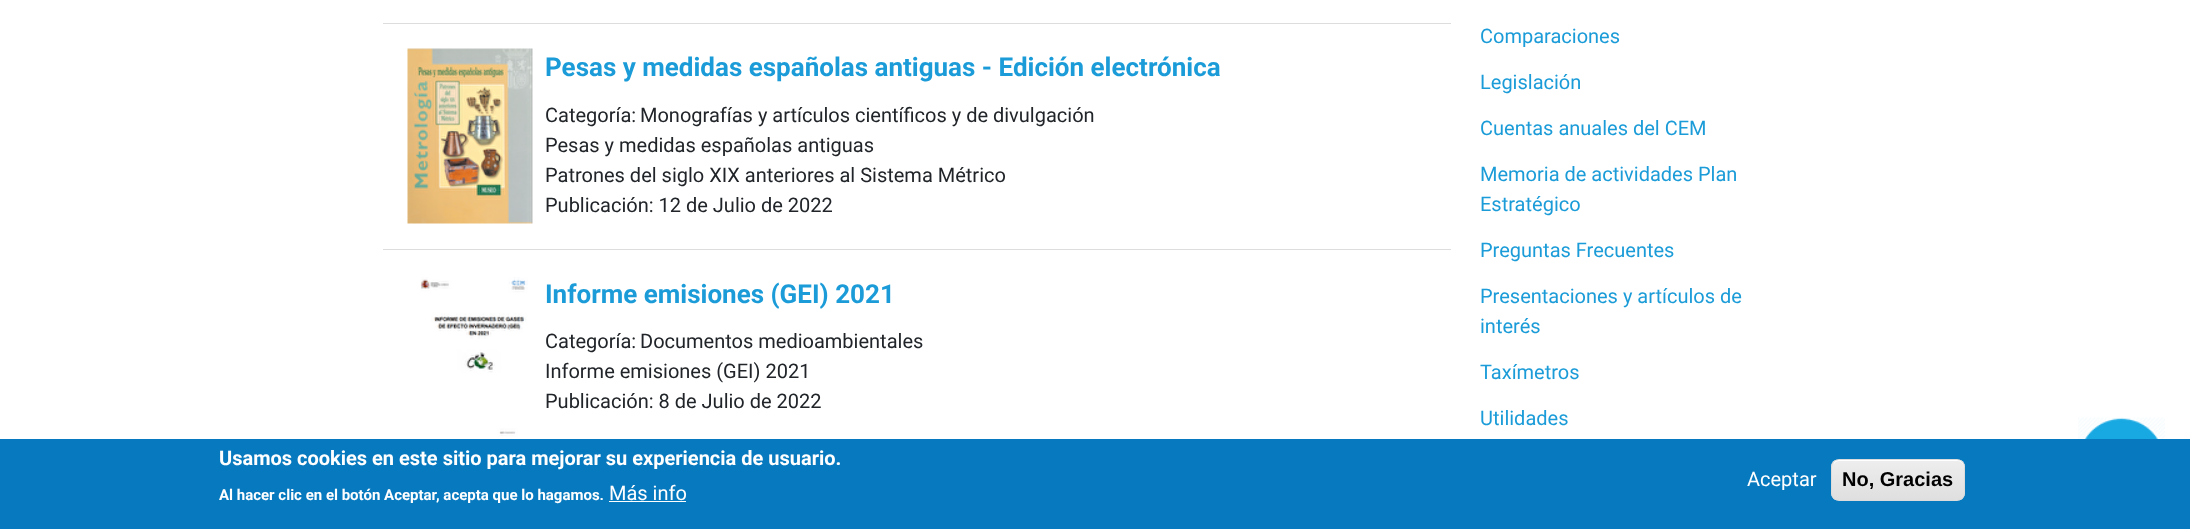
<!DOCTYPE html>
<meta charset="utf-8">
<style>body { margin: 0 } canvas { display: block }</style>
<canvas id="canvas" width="2190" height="529"></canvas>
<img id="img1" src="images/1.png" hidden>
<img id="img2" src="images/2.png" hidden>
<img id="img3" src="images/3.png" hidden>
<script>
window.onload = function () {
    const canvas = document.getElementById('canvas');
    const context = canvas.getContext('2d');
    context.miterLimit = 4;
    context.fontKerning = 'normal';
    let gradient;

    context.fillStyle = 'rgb(255, 255, 255)';
    context.fillRect(0, 0, 2190, 529);
    context.fillStyle = 'rgb(221, 221, 221)';
    context.fillRect(383, 23, 1068, 1);
    context.fillRect(383, 249, 1068, 1);
    context.drawImage(document.getElementById('img1'), 407, 48, 126, 176);
    context.drawImage(document.getElementById('img2'), 420, 277, 108, 162);
    context.drawImage(document.getElementById('img3'), 2078, 417, 87, 22);
    context.fillStyle = 'rgb(7, 121, 191)';
    context.fillRect(0, 439, 2190, 90);
    context.fillStyle = 'rgb(255, 255, 255)';
    context.fillRect(609, 501, 77, 1);
    context.save();
    context.beginPath();
    context.roundRect(1831, 459, 134, 42, 8);
    context.clip();
    gradient = context.createLinearGradient(1898, 460, 1898, 500);
    gradient.addColorStop(0.05, 'rgb(237, 237, 237)');
    gradient.addColorStop(1, 'rgb(223, 223, 223)');
    context.fillStyle = gradient;
    context.fillRect(1831, 460, 134, 40);
    context.restore();
    context.beginPath();
    context.moveTo(1839, 461);
    context.lineTo(1958, 461);
    context.bezierCurveTo(1961, 461, 1964, 464, 1964, 468);
    context.lineTo(1964, 466);
    context.bezierCurveTo(1964, 463, 1961, 460, 1958, 460);
    context.lineTo(1839, 460);
    context.bezierCurveTo(1837, 460, 1834, 461, 1834, 464);
    context.bezierCurveTo(1835, 462, 1837, 461, 1839, 461);
    context.closePath();
    context.fill();
    context.beginPath();
    context.roundRect(1831.5, 459.5, 133, 41, 7.5);
    context.strokeStyle = 'rgb(220, 220, 220)';
    context.stroke();
    context.font = 'bold 26px Roboto';
    context.fillStyle = 'rgb(27, 156, 216)';
    context.fillText('Pesas y medidas españolas antiguas - Edición electrónica', 545, 76);
    context.font = '20px Roboto';
    context.fillStyle = 'rgb(33, 37, 41)';
    context.fillText('Categoría:', 545, 122);
    context.fillText('Monografías y artículos científicos y de divulgación', 640, 122);
    context.fillText('Pesas y medidas españolas antiguas', 545, 152);
    context.fillText('Patrones del siglo XIX anteriores al Sistema Métrico', 545, 182);
    context.fillText('Publicación: 12 de Julio de 2022', 545, 212);
    context.font = 'bold 26px Roboto';
    context.fillStyle = 'rgb(27, 156, 216)';
    context.fillText('Informe emisiones (GEI) 2021', 545, 303);
    context.font = '20px Roboto';
    context.fillStyle = 'rgb(33, 37, 41)';
    context.fillText('Categoría:', 545, 348);
    context.fillText('Documentos medioambientales', 640, 348);
    context.fillText('Informe emisiones (GEI) 2021', 545, 378);
    context.fillText('Publicación: 8 de Julio de 2022', 545, 408);
    context.fillStyle = 'rgb(27, 156, 216)';
    context.fillText('Comparaciones', 1480, 43);
    context.fillText('Legislación', 1480, 89);
    context.fillText('Cuentas anuales del CEM', 1480, 135);
    context.fillText('Memoria de actividades Plan', 1480, 181);
    context.fillText('Estratégico', 1480, 211);
    context.fillText('Preguntas Frecuentes', 1480, 257);
    context.fillText('Presentaciones y artículos de', 1480, 303);
    context.fillText('interés', 1480, 333);
    context.fillText('Taxímetros', 1480, 379);
    context.fillText('Utilidades', 1480, 425);
    context.font = 'bold 20px Roboto';
    context.fillStyle = 'rgb(255, 255, 255)';
    context.fillText('Usamos cookies en este sitio para mejorar su experiencia de usuario.', 219, 465);
    context.font = 'bold 15px Roboto';
    context.fillText('Al hacer clic en el botón Aceptar, acepta que lo hagamos.', 219, 500);
    context.font = '20px Roboto';
    context.fillText('Más info', 609, 500);
    context.fillText('Aceptar', 1747, 486);
    context.font = 'bold 20px Liberation Sans';
    context.fillStyle = 'rgb(0, 0, 0)';
    context.fillText('No, Gracias', 1842, 486);
};
</script>
